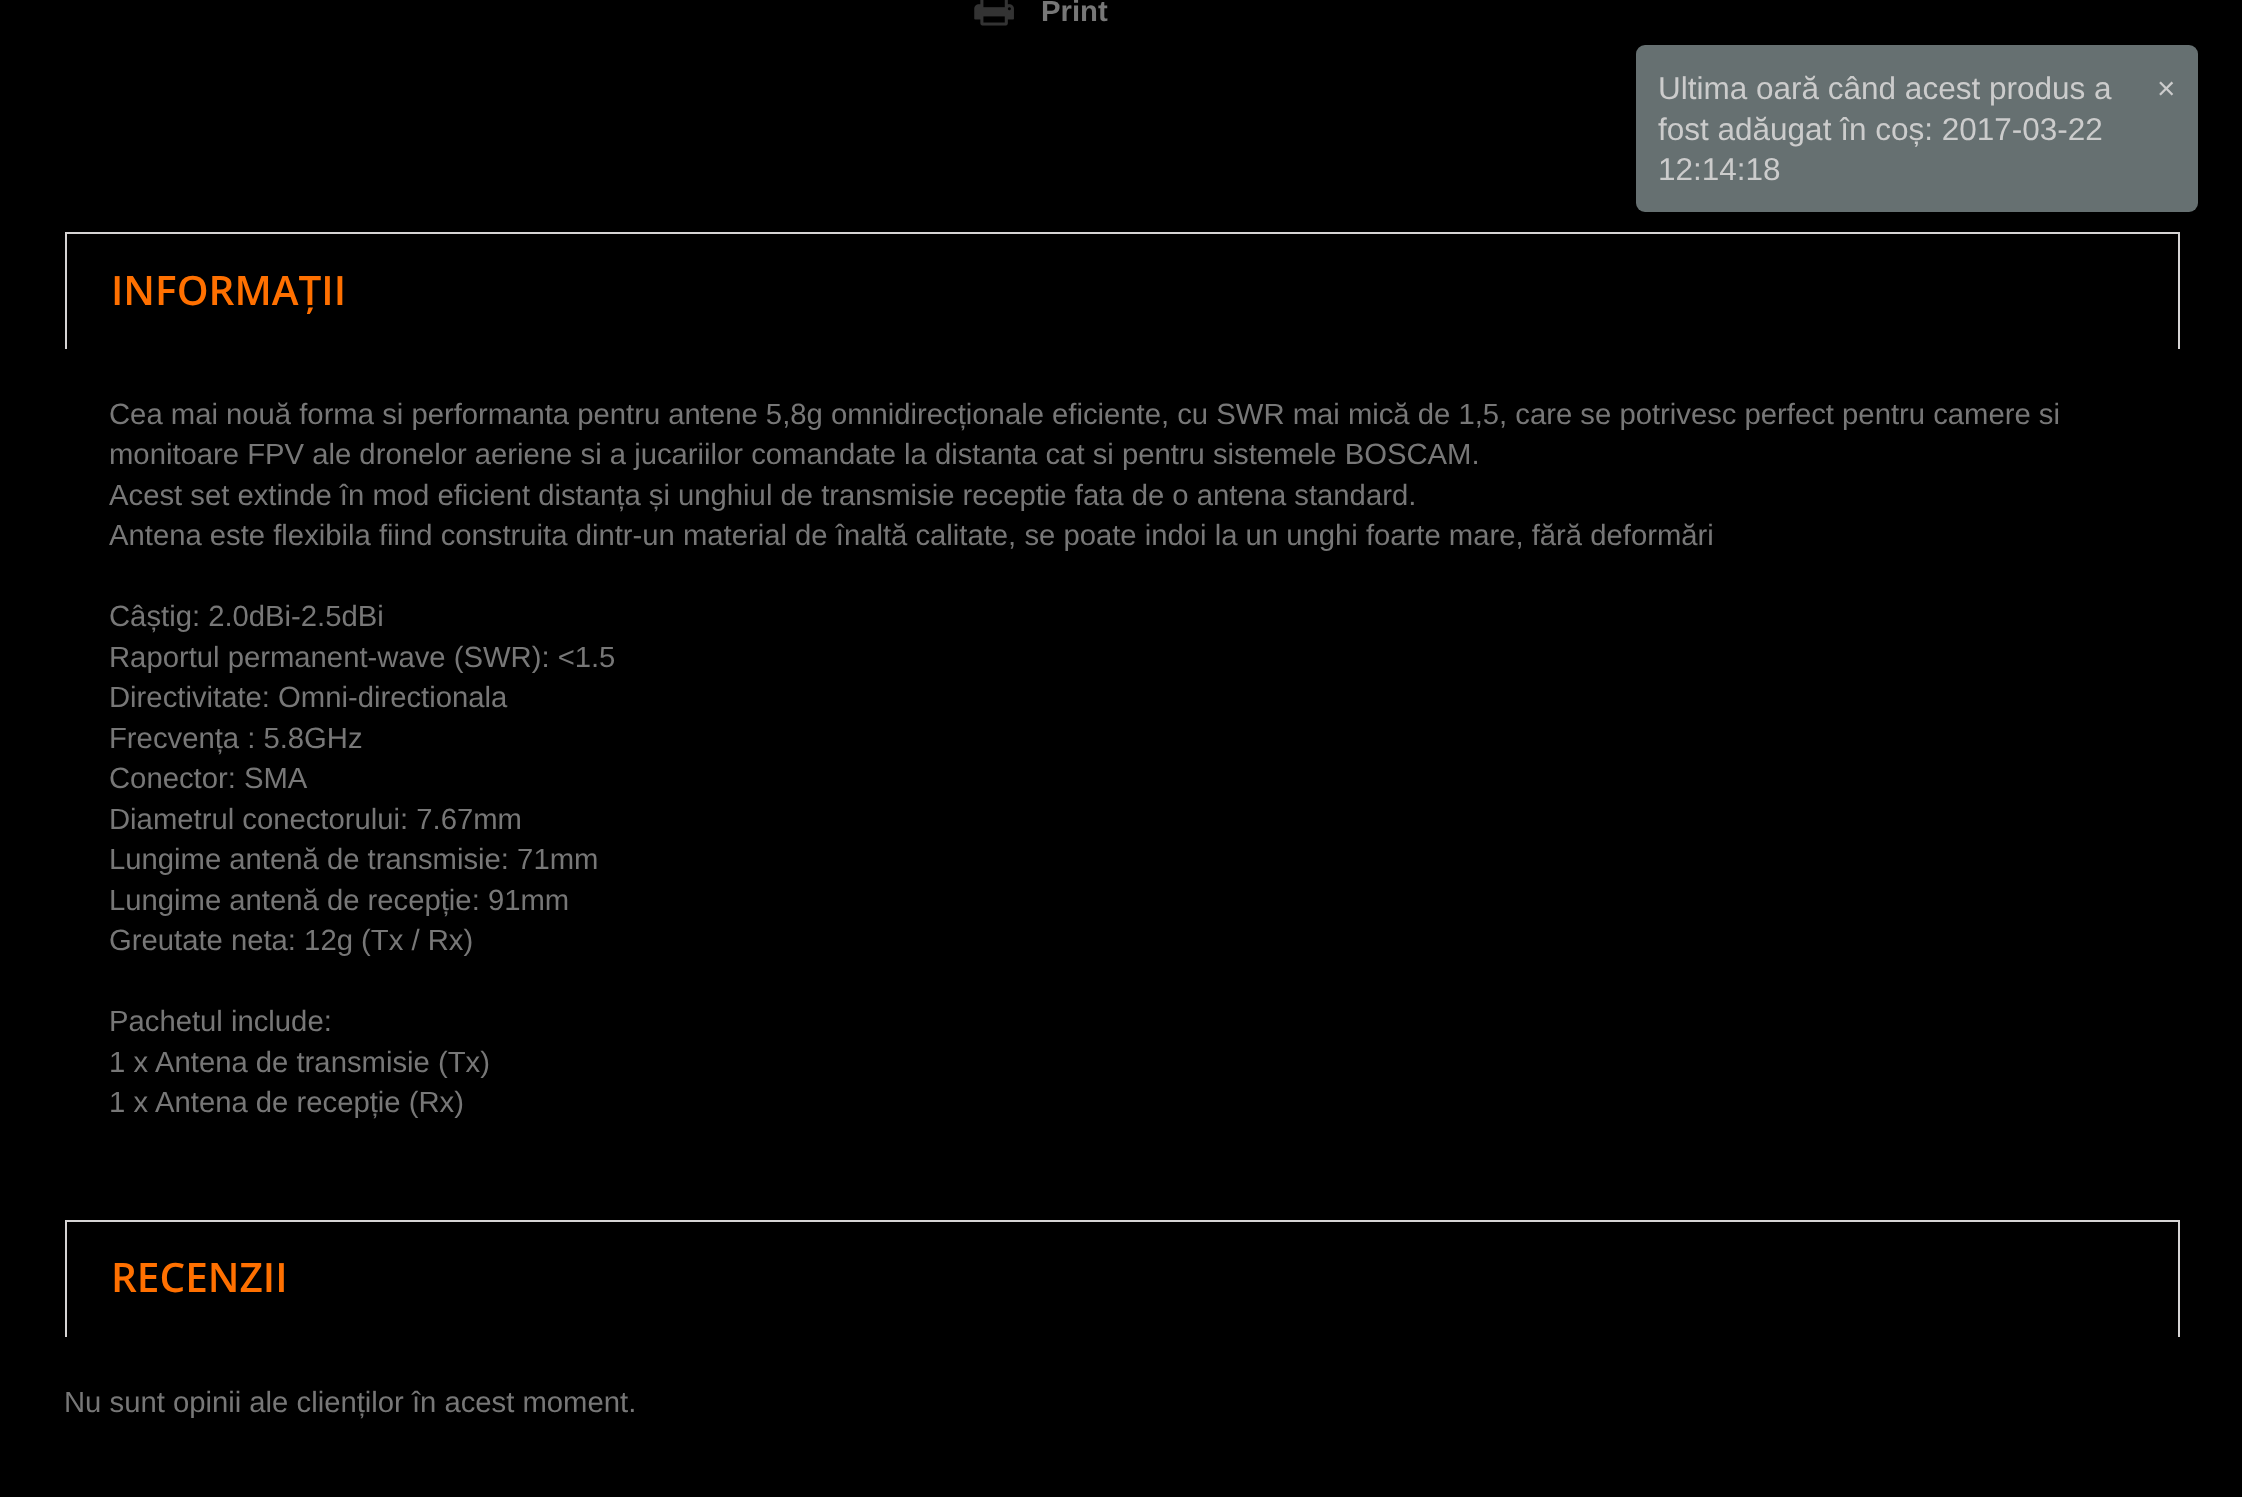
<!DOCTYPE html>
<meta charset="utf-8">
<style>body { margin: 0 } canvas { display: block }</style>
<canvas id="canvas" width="2242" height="1497"></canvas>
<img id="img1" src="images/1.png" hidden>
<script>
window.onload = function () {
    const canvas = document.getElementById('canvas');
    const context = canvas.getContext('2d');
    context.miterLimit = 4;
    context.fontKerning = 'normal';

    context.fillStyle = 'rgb(0, 0, 0)';
    context.fillRect(0, 0, 2242, 1497);
    context.drawImage(document.getElementById('img1'), 974, 0, 40, 26);
    context.fillStyle = 'rgb(214, 212, 212)';
    context.fillRect(65, 232, 2115, 2);
    context.fillRect(2178, 232, 2, 117);
    context.fillRect(65, 232, 2, 117);
    context.fillRect(65, 1220, 2115, 2);
    context.fillRect(2178, 1220, 2, 117);
    context.fillRect(65, 1220, 2, 117);
    context.fillStyle = 'rgb(102, 112, 113)';
    context.beginPath();
    context.roundRect(1636, 45, 562, 167, 9);
    context.fill();
    context.font = 'bold 29.25px Liberation Sans';
    context.fillStyle = 'rgb(119, 119, 119)';
    context.fillText('Print', 1041, 21);
    context.font = '600 40.5px Open Sans';
    context.fillStyle = 'rgb(255, 112, 0)';
    context.fillText('INFORMAȚII', 111, 305);
    context.font = '29.25px Liberation Sans';
    context.fillStyle = 'rgb(119, 119, 119)';
    context.fillText('Cea mai nouă forma si performanta pentru antene 5,8g omnidirecționale eficiente, cu SWR mai mică de 1,5, care se potrivesc perfect pentru camere si', 109, 424);
    context.fillText('monitoare FPV ale dronelor aeriene si a jucariilor comandate la distanta cat si pentru sistemele BOSCAM.', 109, 464);
    context.fillText('Acest set extinde în mod eficient distanța și unghiul de transmisie receptie fata de o antena standard.', 109, 505);
    context.fillText('Antena este flexibila fiind construita dintr-un material de înaltă calitate, se poate indoi la un unghi foarte mare, fără deformări', 109, 545);
    context.fillText('Câștig: 2.0dBi-2.5dBi', 109, 626);
    context.fillText('Raportul permanent-wave (SWR): <1.5', 109, 667);
    context.fillText('Directivitate: Omni-directionala', 109, 707);
    context.fillText('Frecvența : 5.8GHz', 109, 748);
    context.fillText('Conector: SMA', 109, 788);
    context.fillText('Diametrul conectorului: 7.67mm', 109, 829);
    context.fillText('Lungime antenă de transmisie: 71mm', 109, 869);
    context.fillText('Lungime antenă de recepție: 91mm', 109, 910);
    context.fillText('Greutate neta: 12g (Tx / Rx)', 109, 950);
    context.fillText('Pachetul include:', 109, 1031);
    context.fillText('1 x', 109, 1072);
    context.fillText('Antena de transmisie (Tx)', 155, 1072);
    context.fillText('1 x', 109, 1112);
    context.fillText('Antena de recepție (Rx)', 155, 1112);
    context.font = '600 40.5px Open Sans';
    context.fillStyle = 'rgb(255, 112, 0)';
    context.fillText('RECENZII', 111, 1292);
    context.font = '29.25px Liberation Sans';
    context.fillStyle = 'rgb(119, 119, 119)';
    context.fillText('Nu sunt opinii ale clienților în acest moment.', 64, 1412);
    context.font = '31.5px Liberation Sans';
    context.fillStyle = 'rgb(204, 204, 204)';
    context.fillText('Ultima oară când acest produs a', 1658, 99);
    context.fillText('fost adăugat în coș: 2017-03-22', 1658, 140);
    context.fillText('12:14:18', 1658, 180);
    context.fillText('×', 2157, 99);
};
</script>
